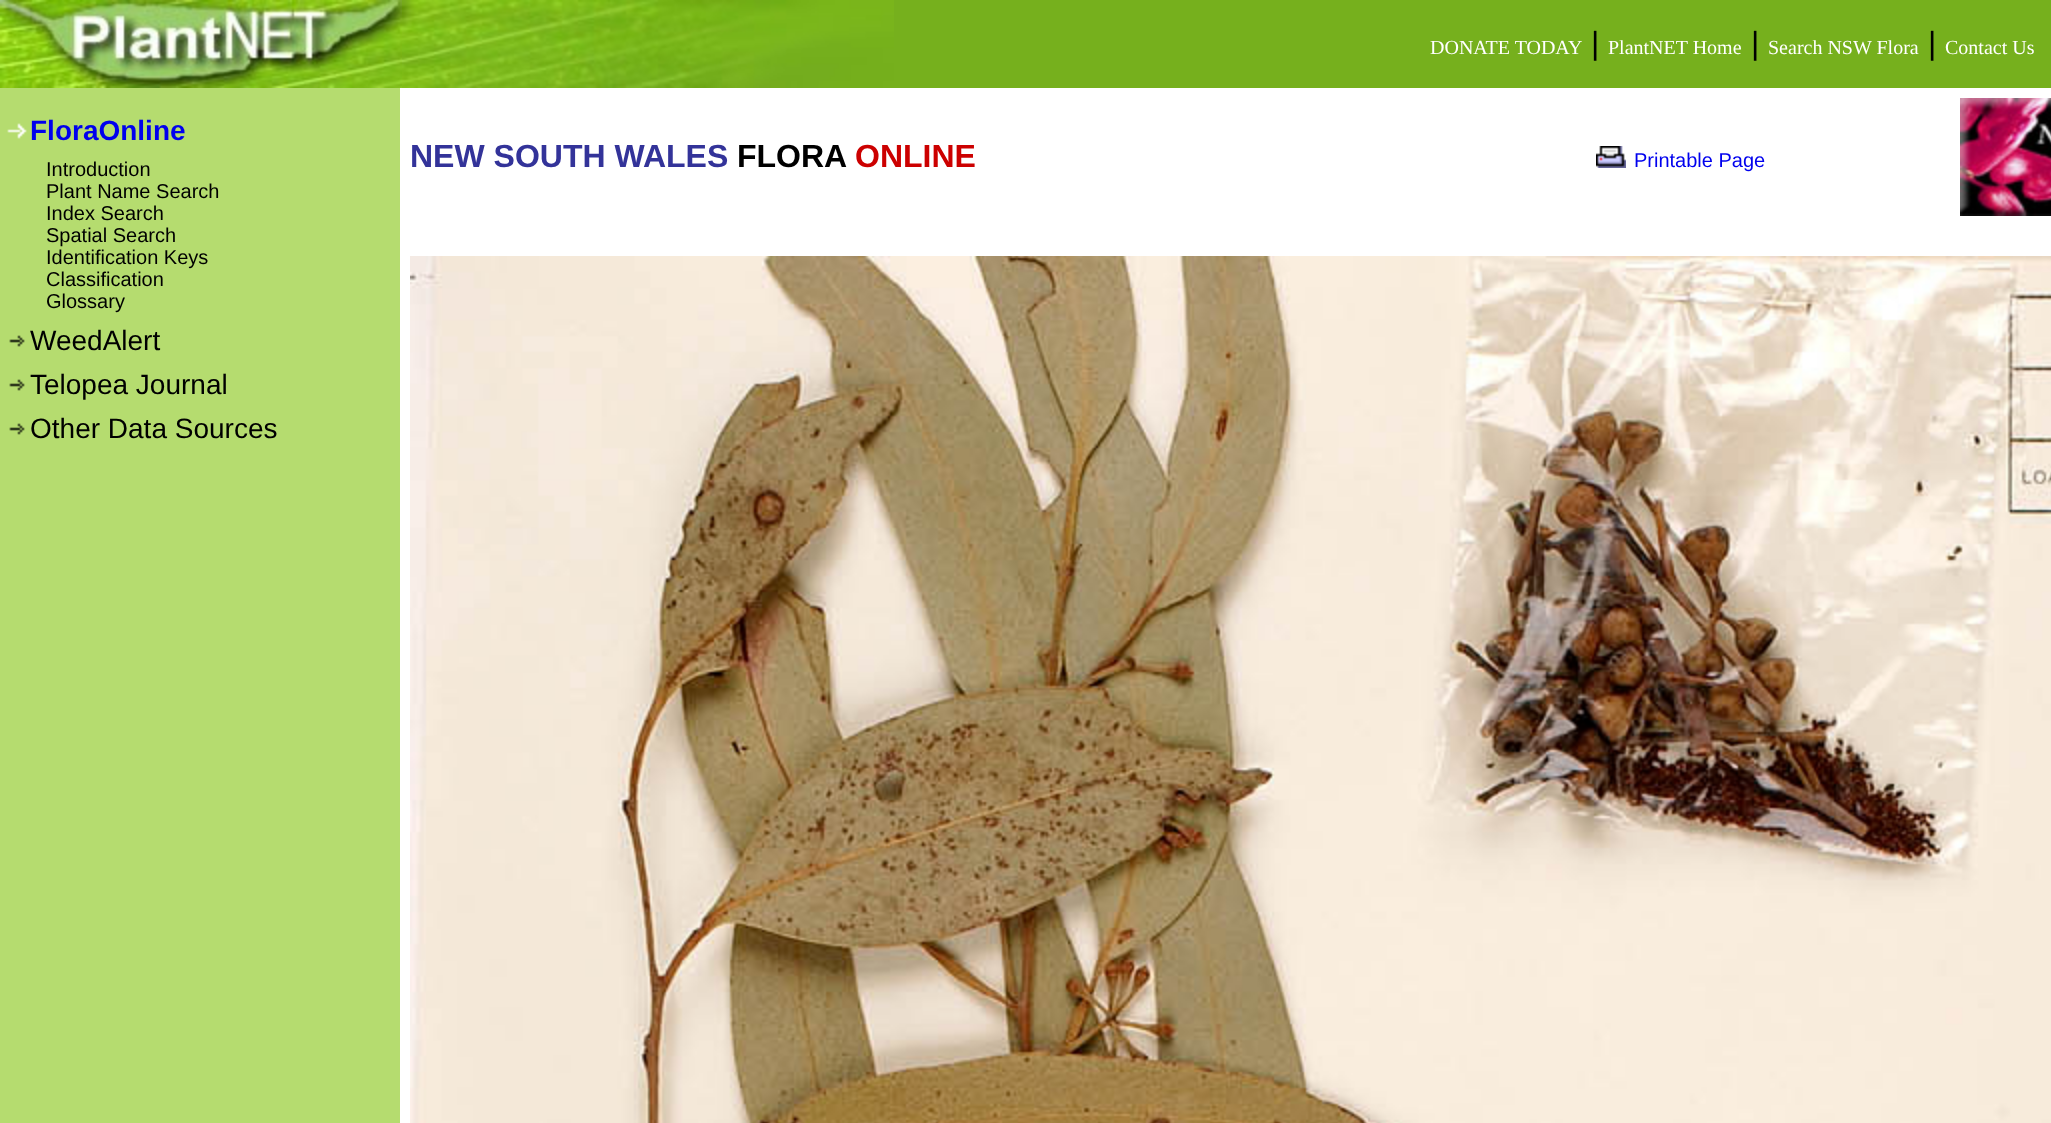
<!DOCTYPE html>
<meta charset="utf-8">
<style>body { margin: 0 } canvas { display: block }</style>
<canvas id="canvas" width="2051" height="1123"></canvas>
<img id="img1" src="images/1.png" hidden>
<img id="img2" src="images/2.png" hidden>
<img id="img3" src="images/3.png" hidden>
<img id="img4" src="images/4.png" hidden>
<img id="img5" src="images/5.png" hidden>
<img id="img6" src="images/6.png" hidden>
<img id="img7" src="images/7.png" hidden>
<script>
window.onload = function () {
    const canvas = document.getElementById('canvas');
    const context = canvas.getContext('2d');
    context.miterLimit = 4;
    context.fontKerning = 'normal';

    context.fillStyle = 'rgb(255, 255, 255)';
    context.fillRect(0, 0, 2051, 1123);
    context.drawImage(document.getElementById('img1'), 0, 0, 402, 88);
    context.fillStyle = 'rgb(118, 176, 29)';
    context.fillRect(894, 0, 1157, 88);
    context.drawImage(document.getElementById('img2'), 402, 0, 492, 88);
    context.fillStyle = 'rgb(181, 220, 111)';
    context.fillRect(0, 88, 400, 1035);
    context.drawImage(document.getElementById('img3'), 7, 123, 20, 16);
    context.drawImage(document.getElementById('img4'), 9, 335, 16, 12);
    context.drawImage(document.getElementById('img4'), 9, 379, 16, 12);
    context.drawImage(document.getElementById('img4'), 9, 423, 16, 12);
    context.drawImage(document.getElementById('img5'), 1596, 146, 30, 22);
    context.drawImage(document.getElementById('img6'), 1960, 98, 91, 118);
    context.drawImage(document.getElementById('img7'), 410, 256, 1641, 867);
    context.font = '20px Liberation Serif';
    context.fillStyle = 'rgb(255, 255, 255)';
    context.fillText('DONATE TODAY', 1430, 54);
    context.font = '32px Liberation Sans';
    context.fillStyle = 'rgb(0, 0, 0)';
    context.fillText('|', 1591, 54);
    context.font = '20px Liberation Serif';
    context.fillStyle = 'rgb(255, 255, 255)';
    context.fillText('PlantNET Home', 1608, 54);
    context.font = '32px Liberation Sans';
    context.fillStyle = 'rgb(0, 0, 0)';
    context.fillText('|', 1751, 54);
    context.font = '20px Liberation Serif';
    context.fillStyle = 'rgb(255, 255, 255)';
    context.fillText('Search NSW Flora', 1768, 54);
    context.font = '32px Liberation Sans';
    context.fillStyle = 'rgb(0, 0, 0)';
    context.fillText('|', 1928, 54);
    context.font = '20px Liberation Serif';
    context.fillStyle = 'rgb(255, 255, 255)';
    context.fillText('Contact Us', 1945, 54);
    context.font = 'bold 28px Liberation Sans';
    context.fillStyle = 'rgb(0, 0, 238)';
    context.fillText('FloraOnline', 30, 140);
    context.font = '20px Liberation Sans';
    context.fillStyle = 'rgb(0, 0, 0)';
    context.fillText('Introduction', 46, 176);
    context.fillText('Plant Name Search', 46, 198);
    context.fillText('Index Search', 46, 220);
    context.fillText('Spatial Search', 46, 242);
    context.fillText('Identification Keys', 46, 264);
    context.fillText('Classification', 46, 286);
    context.fillText('Glossary', 46, 308);
    context.font = '28px Liberation Sans';
    context.fillText('WeedAlert', 30, 350);
    context.fillText('Telopea Journal', 30, 394);
    context.fillText('Other Data Sources', 30, 438);
    context.font = 'bold 32px Liberation Sans';
    context.fillStyle = 'rgb(51, 51, 153)';
    context.fillText('NEW SOUTH WALES', 410, 167);
    context.fillStyle = 'rgb(0, 0, 0)';
    context.fillText('FLORA', 737, 167);
    context.fillStyle = 'rgb(204, 0, 0)';
    context.fillText('ONLINE', 855, 167);
    context.font = '20px Liberation Sans';
    context.fillStyle = 'rgb(0, 0, 238)';
    context.fillText('Printable Page', 1634, 167);
};
</script>
